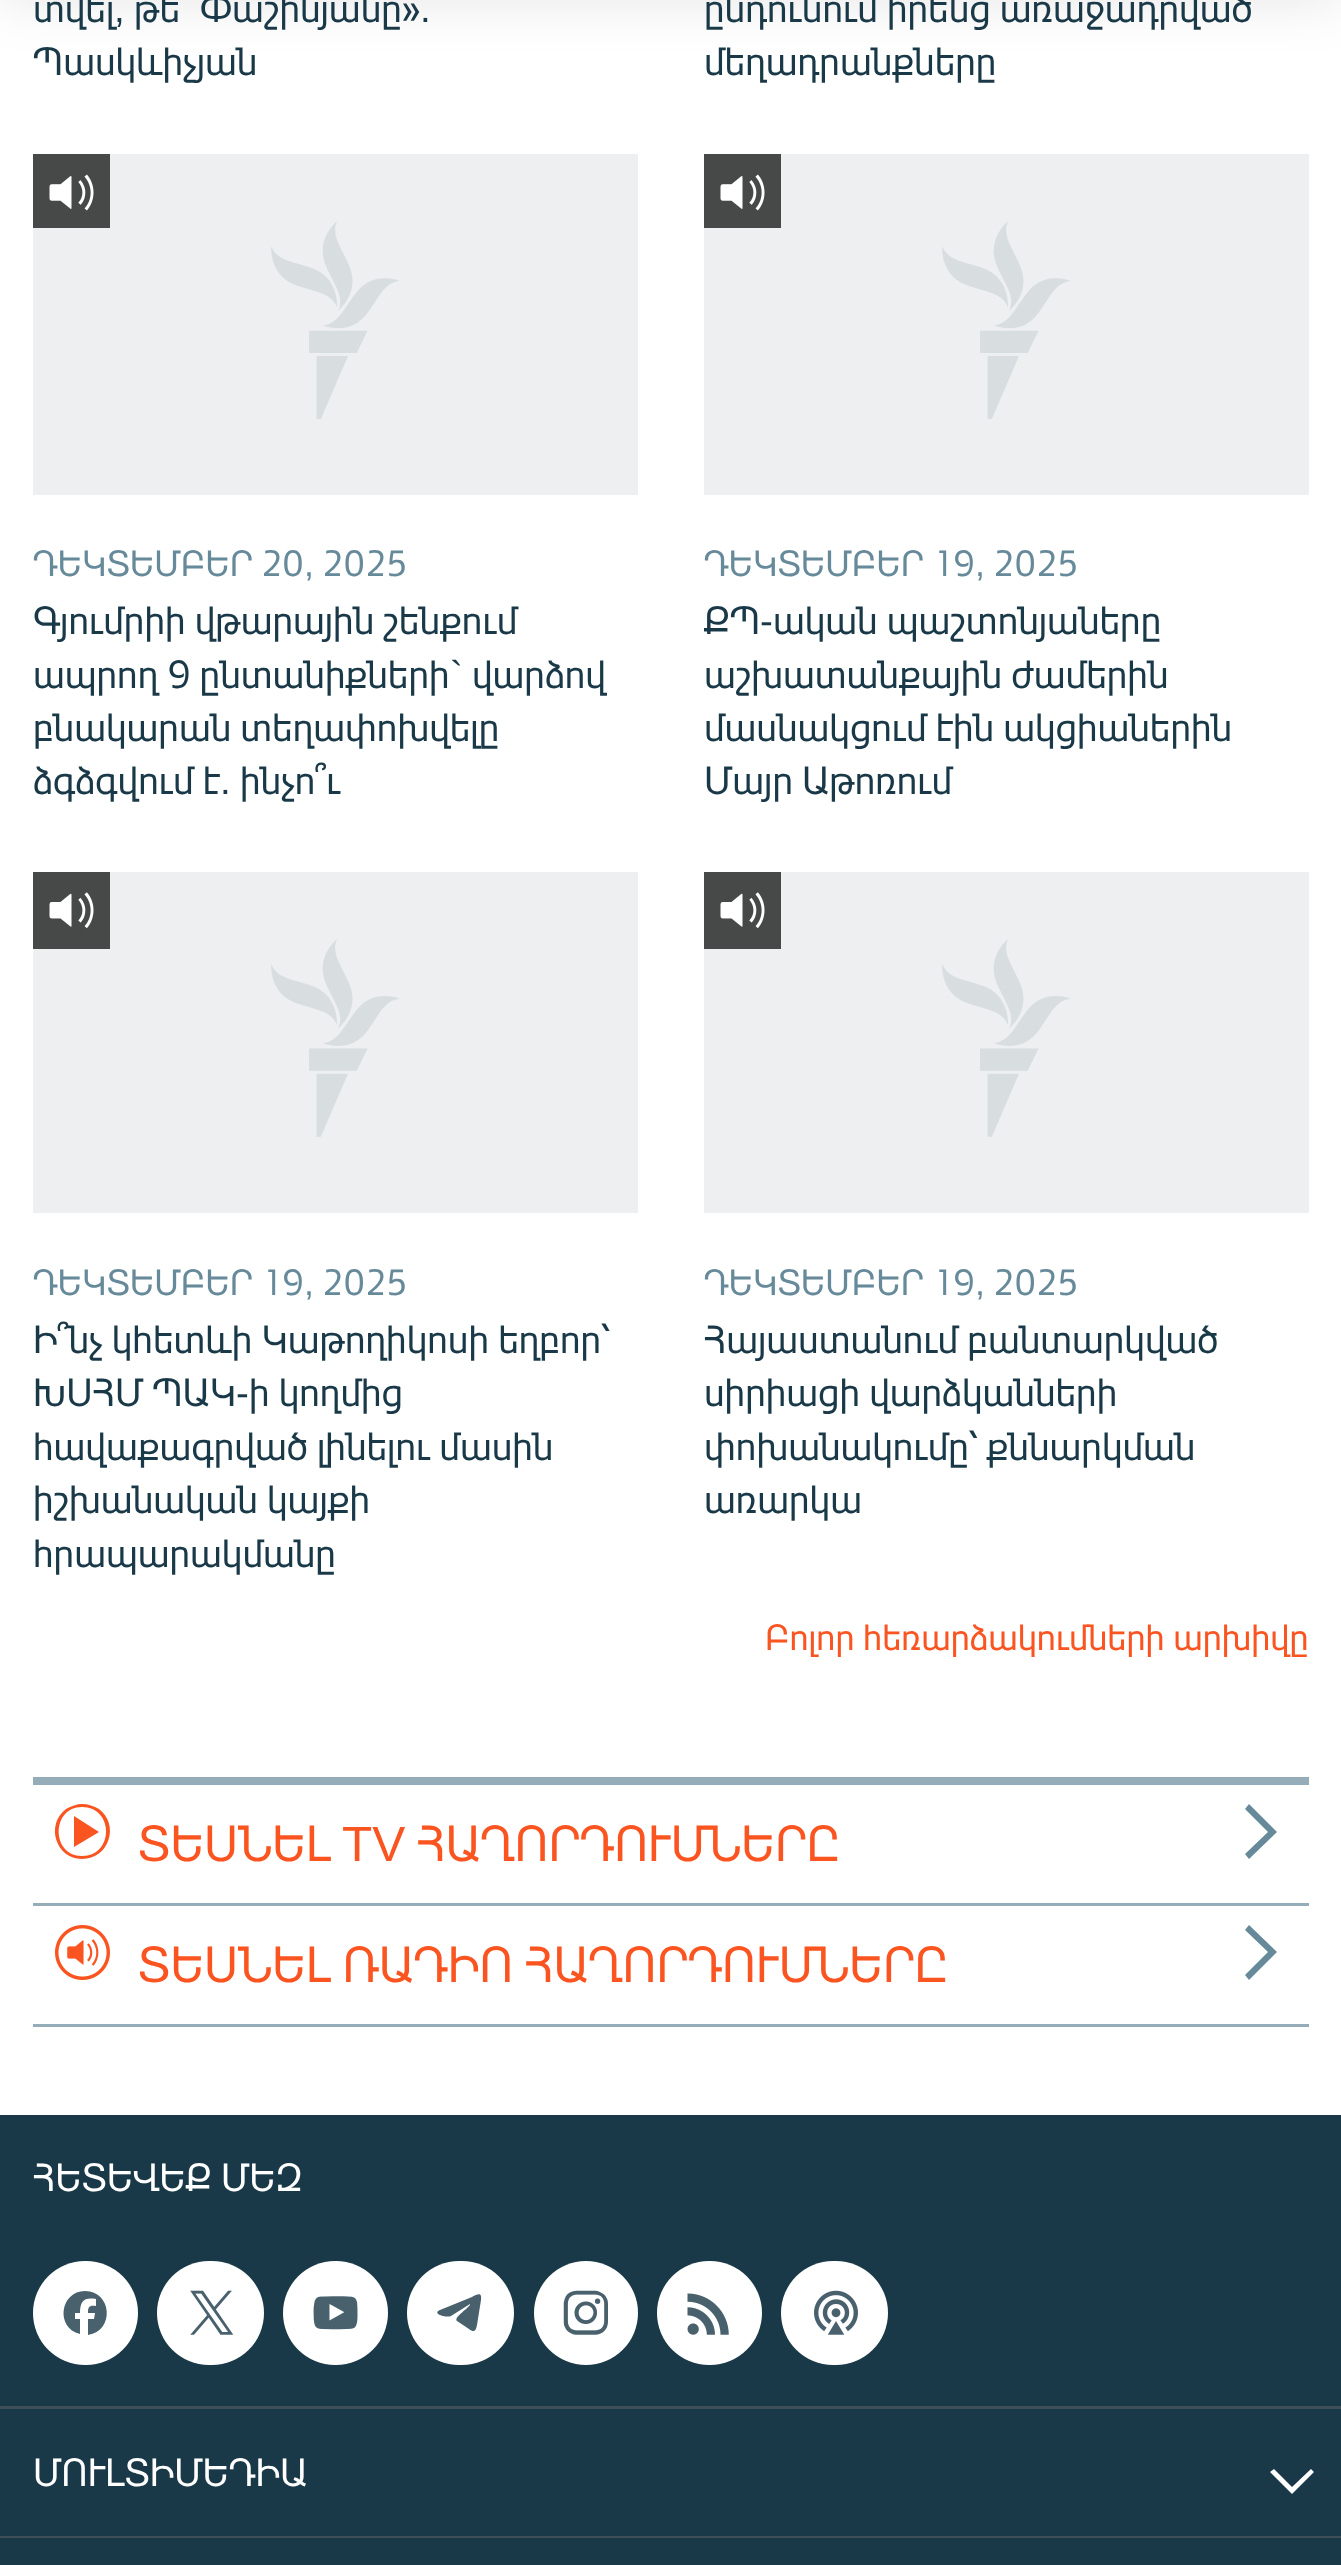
<!DOCTYPE html>
<meta charset="utf-8">
<style>body { margin: 0 } canvas { display: block }</style>
<canvas id="canvas" width="1341" height="2565"></canvas>
<img id="img1" src="images/1.png" hidden>
<img id="img2" src="images/2.png" hidden>
<img id="img3" src="images/3.png" hidden>
<img id="img4" src="images/4.png" hidden>
<img id="img5" src="images/5.png" hidden>
<img id="img6" src="images/6.png" hidden>
<img id="img7" src="images/7.png" hidden>
<img id="img8" src="images/8.png" hidden>
<img id="img9" src="images/9.png" hidden>
<img id="img10" src="images/10.png" hidden>
<script>
window.onload = function () {
    const canvas = document.getElementById('canvas');
    const context = canvas.getContext('2d');
    context.miterLimit = 4;
    context.fontKerning = 'normal';

    context.fillStyle = 'rgb(255, 255, 255)';
    context.fillRect(0, 0, 1341, 2565);
    context.fillStyle = 'rgba(0, 0, 0, 0.1)';
    context.filter = 'blur(27.5px)';
    context.beginPath();
    context.rect(0, -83, 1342, 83);
    context.fill();
    context.filter = 'none';
    context.fillStyle = 'rgb(237, 239, 240)';
    context.fillRect(33, 154, 605, 341);
    context.drawImage(document.getElementById('img1'), 271, 221, 128, 198);
    context.fillStyle = 'rgb(71, 72, 72)';
    context.fillRect(33, 154, 77, 74);
    context.drawImage(document.getElementById('img2'), 49, 174, 45, 37);
    context.fillStyle = 'rgb(237, 239, 240)';
    context.fillRect(704, 154, 605, 341);
    context.drawImage(document.getElementById('img1'), 942, 221, 128, 198);
    context.fillStyle = 'rgb(71, 72, 72)';
    context.fillRect(704, 154, 77, 74);
    context.drawImage(document.getElementById('img2'), 720, 174, 45, 37);
    context.fillStyle = 'rgb(237, 239, 240)';
    context.fillRect(33, 872, 605, 341);
    context.drawImage(document.getElementById('img3'), 271, 939, 128, 198);
    context.fillStyle = 'rgb(71, 72, 72)';
    context.fillRect(33, 872, 77, 77);
    context.drawImage(document.getElementById('img4'), 49, 892, 45, 37);
    context.fillStyle = 'rgb(237, 239, 240)';
    context.fillRect(704, 872, 605, 341);
    context.drawImage(document.getElementById('img3'), 942, 939, 128, 198);
    context.fillStyle = 'rgb(71, 72, 72)';
    context.fillRect(704, 872, 77, 77);
    context.drawImage(document.getElementById('img4'), 720, 892, 45, 37);
    context.fillStyle = 'rgb(149, 173, 185)';
    context.fillRect(33, 1777, 1276, 8);
    context.fillRect(33, 1903, 1276, 3);
    context.fillStyle = 'rgb(250, 84, 32)';
    context.beginPath();
    context.moveTo(74, 1847);
    context.lineTo(99, 1832);
    context.lineTo(74, 1816);
    context.closePath();
    context.moveTo(82, 1807);
    context.bezierCurveTo(114, 1807, 114, 1856, 82, 1856);
    context.bezierCurveTo(51, 1856, 51, 1807, 82, 1807);
    context.closePath();
    context.moveTo(82, 1804);
    context.bezierCurveTo(77, 1804, 71, 1806, 66, 1809);
    context.bezierCurveTo(45, 1825, 56, 1859, 82, 1859);
    context.bezierCurveTo(109, 1859, 120, 1825, 99, 1809);
    context.bezierCurveTo(94, 1806, 88, 1804, 82, 1804);
    context.closePath();
    context.fill();
    context.fillStyle = 'rgb(103, 138, 155)';
    context.beginPath();
    context.moveTo(1249, 1859);
    context.lineTo(1277, 1832);
    context.lineTo(1249, 1804);
    context.lineTo(1245, 1809);
    context.lineTo(1268, 1832);
    context.lineTo(1245, 1854);
    context.closePath();
    context.fill();
    context.fillStyle = 'rgb(149, 173, 185)';
    context.fillRect(33, 2024, 1276, 3);
    context.drawImage(document.getElementById('img5'), 55, 1925, 55, 55);
    context.fillStyle = 'rgb(103, 138, 155)';
    context.beginPath();
    context.moveTo(1249, 1980);
    context.lineTo(1277, 1952);
    context.lineTo(1249, 1925);
    context.lineTo(1245, 1930);
    context.lineTo(1268, 1952);
    context.lineTo(1245, 1975);
    context.closePath();
    context.fill();
    context.fillStyle = 'rgb(26, 57, 72)';
    context.fillRect(0, 2115, 1341, 421);
    context.fillStyle = 'rgb(255, 255, 255)';
    context.beginPath();
    context.roundRect(33, 2261, 105, 104, 52);
    context.fill();
    context.fillStyle = 'rgb(72, 97, 109)';
    context.beginPath();
    context.moveTo(85, 2291);
    context.bezierCurveTo(60, 2291, 55, 2328, 80, 2334);
    context.lineTo(80, 2319);
    context.lineTo(75, 2319);
    context.lineTo(75, 2313);
    context.lineTo(80, 2313);
    context.bezierCurveTo(80, 2301, 84, 2297, 96, 2299);
    context.lineTo(96, 2306);
    context.bezierCurveTo(89, 2305, 88, 2307, 88, 2313);
    context.lineTo(95, 2313);
    context.lineTo(94, 2319);
    context.lineTo(88, 2319);
    context.lineTo(88, 2335);
    context.bezierCurveTo(115, 2331, 112, 2291, 85, 2291);
    context.closePath();
    context.fill();
    context.fillStyle = 'rgb(255, 255, 255)';
    context.beginPath();
    context.roundRect(157, 2261, 107, 104, 52);
    context.fill();
    context.drawImage(document.getElementById('img6'), 190, 2290, 44, 45);
    context.beginPath();
    context.roundRect(283, 2261, 105, 104, 52);
    context.fill();
    context.drawImage(document.getElementById('img7'), 313, 2296, 45, 34);
    context.beginPath();
    context.roundRect(407, 2261, 107, 104, 52);
    context.fill();
    context.fillStyle = 'rgb(72, 97, 109)';
    context.beginPath();
    context.moveTo(440, 2310);
    context.lineTo(472, 2297);
    context.bezierCurveTo(478, 2294, 482, 2292, 481, 2300);
    context.lineTo(477, 2325);
    context.bezierCurveTo(476, 2331, 474, 2333, 469, 2329);
    context.lineTo(457, 2321);
    context.bezierCurveTo(453, 2317, 471, 2307, 470, 2304);
    context.lineTo(451, 2316);
    context.bezierCurveTo(447, 2318, 431, 2314, 440, 2310);
    context.closePath();
    context.fill();
    context.fillStyle = 'rgb(255, 255, 255)';
    context.beginPath();
    context.arc(586, 2313, 52, 0, 2 * Math.PI);
    context.fill();
    context.drawImage(document.getElementById('img8'), 563, 2290, 45, 45);
    context.beginPath();
    context.roundRect(657, 2261, 105, 104, 52);
    context.fill();
    context.drawImage(document.getElementById('img9'), 687, 2293, 42, 42);
    context.beginPath();
    context.roundRect(781, 2261, 107, 104, 52);
    context.fill();
    context.drawImage(document.getElementById('img10'), 814, 2290, 44, 45);
    context.fillStyle = 'rgb(62, 79, 87)';
    context.fillRect(0, 2406, 1341, 3);
    context.fillStyle = 'rgb(255, 255, 255)';
    context.beginPath();
    context.moveTo(1270, 2472);
    context.lineTo(1292, 2494);
    context.lineTo(1314, 2472);
    context.lineTo(1311, 2469);
    context.lineTo(1292, 2487);
    context.lineTo(1274, 2469);
    context.closePath();
    context.fill();
    context.fillStyle = 'rgb(62, 79, 87)';
    context.fillRect(0, 2536, 1341, 2);
    context.fillStyle = 'rgb(26, 57, 72)';
    context.fillRect(0, 2538, 1341, 27);
    context.font = '38.5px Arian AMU';
    context.fillText('տվել', 33, 22);
    context.font = '38.5px Liberation Sans';
    context.fillText(',', 114, 22);
    context.font = '38.5px Arian AMU';
    context.fillText('թե՞ Փաշինյանը»', 134, 22);
    context.font = '38.5px Liberation Sans';
    context.fillText('.', 420, 22);
    context.font = '38.5px Arian AMU';
    context.fillText('Պասկևիչյան', 33, 75);
    context.fillText('ընդունում իրենց առաջադրված', 704, 22);
    context.fillText('մեղադրանքները', 704, 75);
    context.font = '35.75px Arian AMU';
    context.fillStyle = 'rgb(103, 138, 155)';
    context.fillText('ԴԵԿՏԵՄԲԵՐ 20', 33, 576);
    context.font = '35.75px Liberation Sans';
    context.fillText(',', 304, 576);
    context.font = '35.75px Arian AMU';
    context.fillText('2025', 322, 576);
    context.font = '38.5px Arian AMU';
    context.fillStyle = 'rgb(26, 57, 72)';
    context.fillText('Գյումրիի վթարային շենքում', 33, 634);
    context.fillText('ապրող 9 ընտանիքների', 33, 688);
    context.font = '38.5px Liberation Sans';
    context.fillText('`', 450, 688);
    context.font = '38.5px Arian AMU';
    context.fillText('վարձով', 472, 688);
    context.fillText('բնակարան տեղափոխվելը', 33, 741);
    context.fillText('ձգձգվում է', 33, 794);
    context.font = '38.5px Liberation Sans';
    context.fillText('.', 220, 794);
    context.font = '38.5px Arian AMU';
    context.fillText('ինչո՞ւ', 240, 794);
    context.font = '35.75px Arian AMU';
    context.fillStyle = 'rgb(103, 138, 155)';
    context.fillText('ԴԵԿՏԵՄԲԵՐ 19', 704, 576);
    context.font = '35.75px Liberation Sans';
    context.fillText(',', 975, 576);
    context.font = '35.75px Arian AMU';
    context.fillText('2025', 993, 576);
    context.font = '38.5px Arian AMU';
    context.fillStyle = 'rgb(26, 57, 72)';
    context.fillText('ՔՊ', 704, 634);
    context.font = '38.5px Liberation Sans';
    context.fillText('-', 760, 634);
    context.font = '38.5px Arian AMU';
    context.fillText('ական պաշտոնյաները', 773, 634);
    context.fillText('աշխատանքային ժամերին', 704, 688);
    context.fillText('մասնակցում էին ակցիաներին', 704, 741);
    context.fillText('Մայր Աթոռում', 704, 794);
    context.font = '35.75px Arian AMU';
    context.fillStyle = 'rgb(103, 138, 155)';
    context.fillText('ԴԵԿՏԵՄԲԵՐ 19', 33, 1295);
    context.font = '35.75px Liberation Sans';
    context.fillText(',', 304, 1295);
    context.font = '35.75px Arian AMU';
    context.fillText('2025', 322, 1295);
    context.font = '38.5px Arian AMU';
    context.fillStyle = 'rgb(26, 57, 72)';
    context.fillText('Ի՞նչ կհետևի Կաթողիկոսի եղբոր՝', 33, 1353);
    context.fillText('ԽՍՀՄ ՊԱԿ', 33, 1406);
    context.font = '38.5px Liberation Sans';
    context.fillText('-', 236, 1406);
    context.font = '38.5px Arian AMU';
    context.fillText('ի կողմից', 249, 1406);
    context.fillText('հավաքագրված լինելու մասին', 33, 1460);
    context.fillText('իշխանական կայքի', 33, 1513);
    context.fillText('հրապարակմանը', 33, 1567);
    context.font = '35.75px Arian AMU';
    context.fillStyle = 'rgb(103, 138, 155)';
    context.fillText('ԴԵԿՏԵՄԲԵՐ 19', 704, 1295);
    context.font = '35.75px Liberation Sans';
    context.fillText(',', 975, 1295);
    context.font = '35.75px Arian AMU';
    context.fillText('2025', 993, 1295);
    context.font = '38.5px Arian AMU';
    context.fillStyle = 'rgb(26, 57, 72)';
    context.fillText('Հայաստանում բանտարկված', 704, 1353);
    context.fillText('սիրիացի վարձկանների', 704, 1406);
    context.fillText('փոխանակումը՝ քննարկման', 704, 1460);
    context.fillText('առարկա', 704, 1513);
    context.font = '35.75px Arian AMU';
    context.fillStyle = 'rgb(250, 84, 32)';
    context.fillText('Բոլոր հեռարձակումների արխիվը', 765, 1650);
    context.font = '49.5px Arian AMU';
    context.fillText('ՏԵՍՆԵԼ', 138, 1861);
    context.font = '49.5px Liberation Sans';
    context.fillText('TV', 342, 1861);
    context.font = '49.5px Arian AMU';
    context.fillText('ՀԱՂՈՐԴՈՒՄՆԵՐԸ', 417, 1861);
    context.fillText('ՏԵՍՆԵԼ ՌԱԴԻՈ ՀԱՂՈՐԴՈՒՄՆԵՐԸ', 138, 1982);
    context.font = '38.5px Arian AMU';
    context.fillStyle = 'rgb(255, 255, 255)';
    context.fillText('ՀԵՏԵՎԵՔ ՄԵԶ', 33, 2191);
    context.fillText('ՄՈՒԼՏԻՄԵԴԻԱ', 33, 2486);
};
</script>
